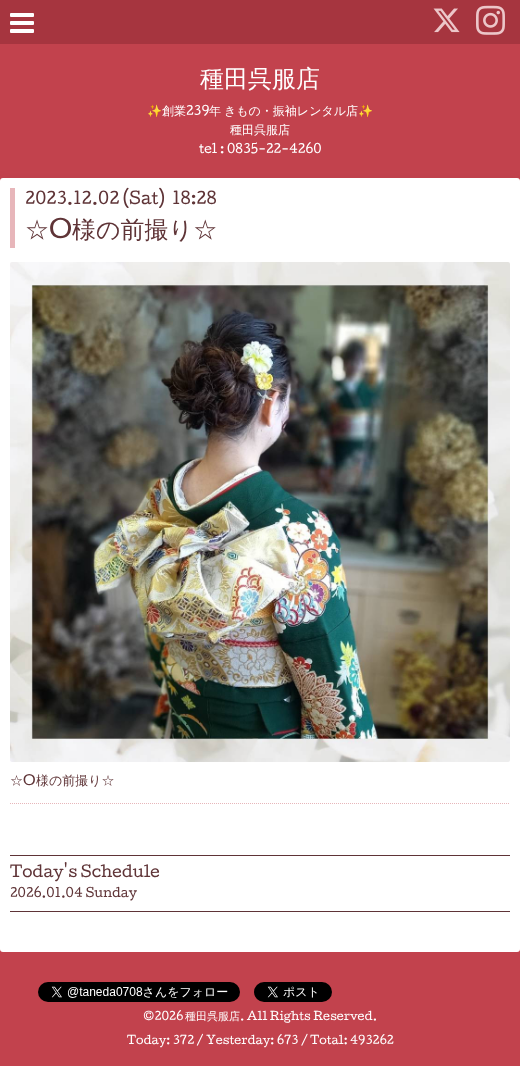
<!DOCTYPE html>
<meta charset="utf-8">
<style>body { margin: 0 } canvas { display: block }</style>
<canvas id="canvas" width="520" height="1066"></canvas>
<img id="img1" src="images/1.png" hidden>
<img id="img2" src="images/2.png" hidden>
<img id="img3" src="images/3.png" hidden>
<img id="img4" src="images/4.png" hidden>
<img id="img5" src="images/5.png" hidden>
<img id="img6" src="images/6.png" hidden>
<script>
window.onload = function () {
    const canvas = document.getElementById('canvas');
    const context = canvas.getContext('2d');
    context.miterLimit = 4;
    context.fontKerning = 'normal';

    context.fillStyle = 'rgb(194, 66, 77)';
    context.fillRect(0, 0, 520, 1066);
    context.fillStyle = 'rgb(166, 53, 63)';
    context.fillRect(0, 0, 520, 44);
    context.drawImage(document.getElementById('img1'), 10, 13, 24, 20);
    context.drawImage(document.getElementById('img2'), 433, 8, 27, 25);
    context.drawImage(document.getElementById('img3'), 476, 5, 29, 30);
    context.fillStyle = 'rgba(166, 53, 63, 0.4)';
    context.filter = 'blur(5px)';
    context.beginPath();
    context.roundRect(0, 181, 520, 656, 3);
    context.fill();
    context.filter = 'none';
    context.fillStyle = 'rgb(255, 255, 255)';
    context.beginPath();
    context.roundRect(0, 178, 520, 656, [3, 3, 0, 0]);
    context.fill();
    context.beginPath();
    context.moveTo(10, 803.5);
    context.lineTo(510, 803.5);
    context.strokeStyle = 'rgb(231, 182, 186)';
    context.setLineDash([1, 1]);
    context.stroke();
    context.fillStyle = 'rgb(231, 182, 186)';
    context.fillRect(10, 188, 5, 60);
    context.drawImage(document.getElementById('img4'), 10, 262, 500, 500);
    context.fillStyle = 'rgb(255, 255, 255)';
    context.beginPath();
    context.roundRect(0, 834, 520, 118, [0, 0, 3, 3]);
    context.fill();
    context.fillStyle = 'rgb(95, 52, 55)';
    context.fillRect(10, 855, 500, 1);
    context.fillRect(10, 911, 500, 1);
    context.drawImage(document.getElementById('img5'), 38, 982, 202, 20);
    context.drawImage(document.getElementById('img6'), 254, 982, 78, 20);
    context.font = '500 24px WenQuanYi Zen Hei';
    context.fillStyle = 'rgb(255, 255, 255)';
    context.fillText('種田呉服店', 200, 87);
    context.font = '12px Noto Color Emoji';
    context.fillText('✨', 147, 115);
    context.font = '500 12px WenQuanYi Zen Hei';
    context.fillText('創業', 162, 115);
    context.font = '12px Cutive';
    context.fillText('239', 186, 115);
    context.font = '500 12px WenQuanYi Zen Hei';
    context.fillText('年', 209, 115);
    context.fillText('きもの・振袖レンタル店', 224, 115);
    context.font = '12px Noto Color Emoji';
    context.fillText('✨', 358, 115);
    context.font = '500 12px WenQuanYi Zen Hei';
    context.fillText('種田呉服店', 230, 134);
    context.font = '12px Cutive';
    context.fillText('tel : 0835-22-4260', 199, 153);
    context.font = '16px Cutive';
    context.fillStyle = 'rgb(95, 52, 55)';
    context.fillText('2023.12.02 (Sat)  18:28', 25, 204);
    context.font = '500 24px WenQuanYi Zen Hei';
    context.fillText('☆', 25, 238);
    context.font = '24px Cutive';
    context.fillText('O', 49, 238);
    context.font = '500 24px WenQuanYi Zen Hei';
    context.fillText('様の前撮り☆', 72, 238);
    context.font = '500 13px WenQuanYi Zen Hei';
    context.fillText('☆', 10, 785);
    context.font = '13px Cutive';
    context.fillText('O', 23, 785);
    context.font = '500 13px WenQuanYi Zen Hei';
    context.fillText('様の前撮り☆', 36, 785);
    context.font = '15px Cutive';
    context.fillText('Today\'s Schedule', 10, 877);
    context.font = '12px Cutive';
    context.fillText('2026.01.04 Sunday', 10, 897);
    context.font = '11px Cutive';
    context.fillStyle = 'rgb(255, 255, 255)';
    context.fillText('©2026', 143, 1020);
    context.font = '500 11px WenQuanYi Zen Hei';
    context.fillText('種田呉服店', 185, 1020);
    context.font = '11px Cutive';
    context.fillText('. All Rights Reserved.', 240, 1020);
    context.fillText('Today: 372 / Yesterday: 673 / Total: 493262', 127, 1044);
};
</script>
